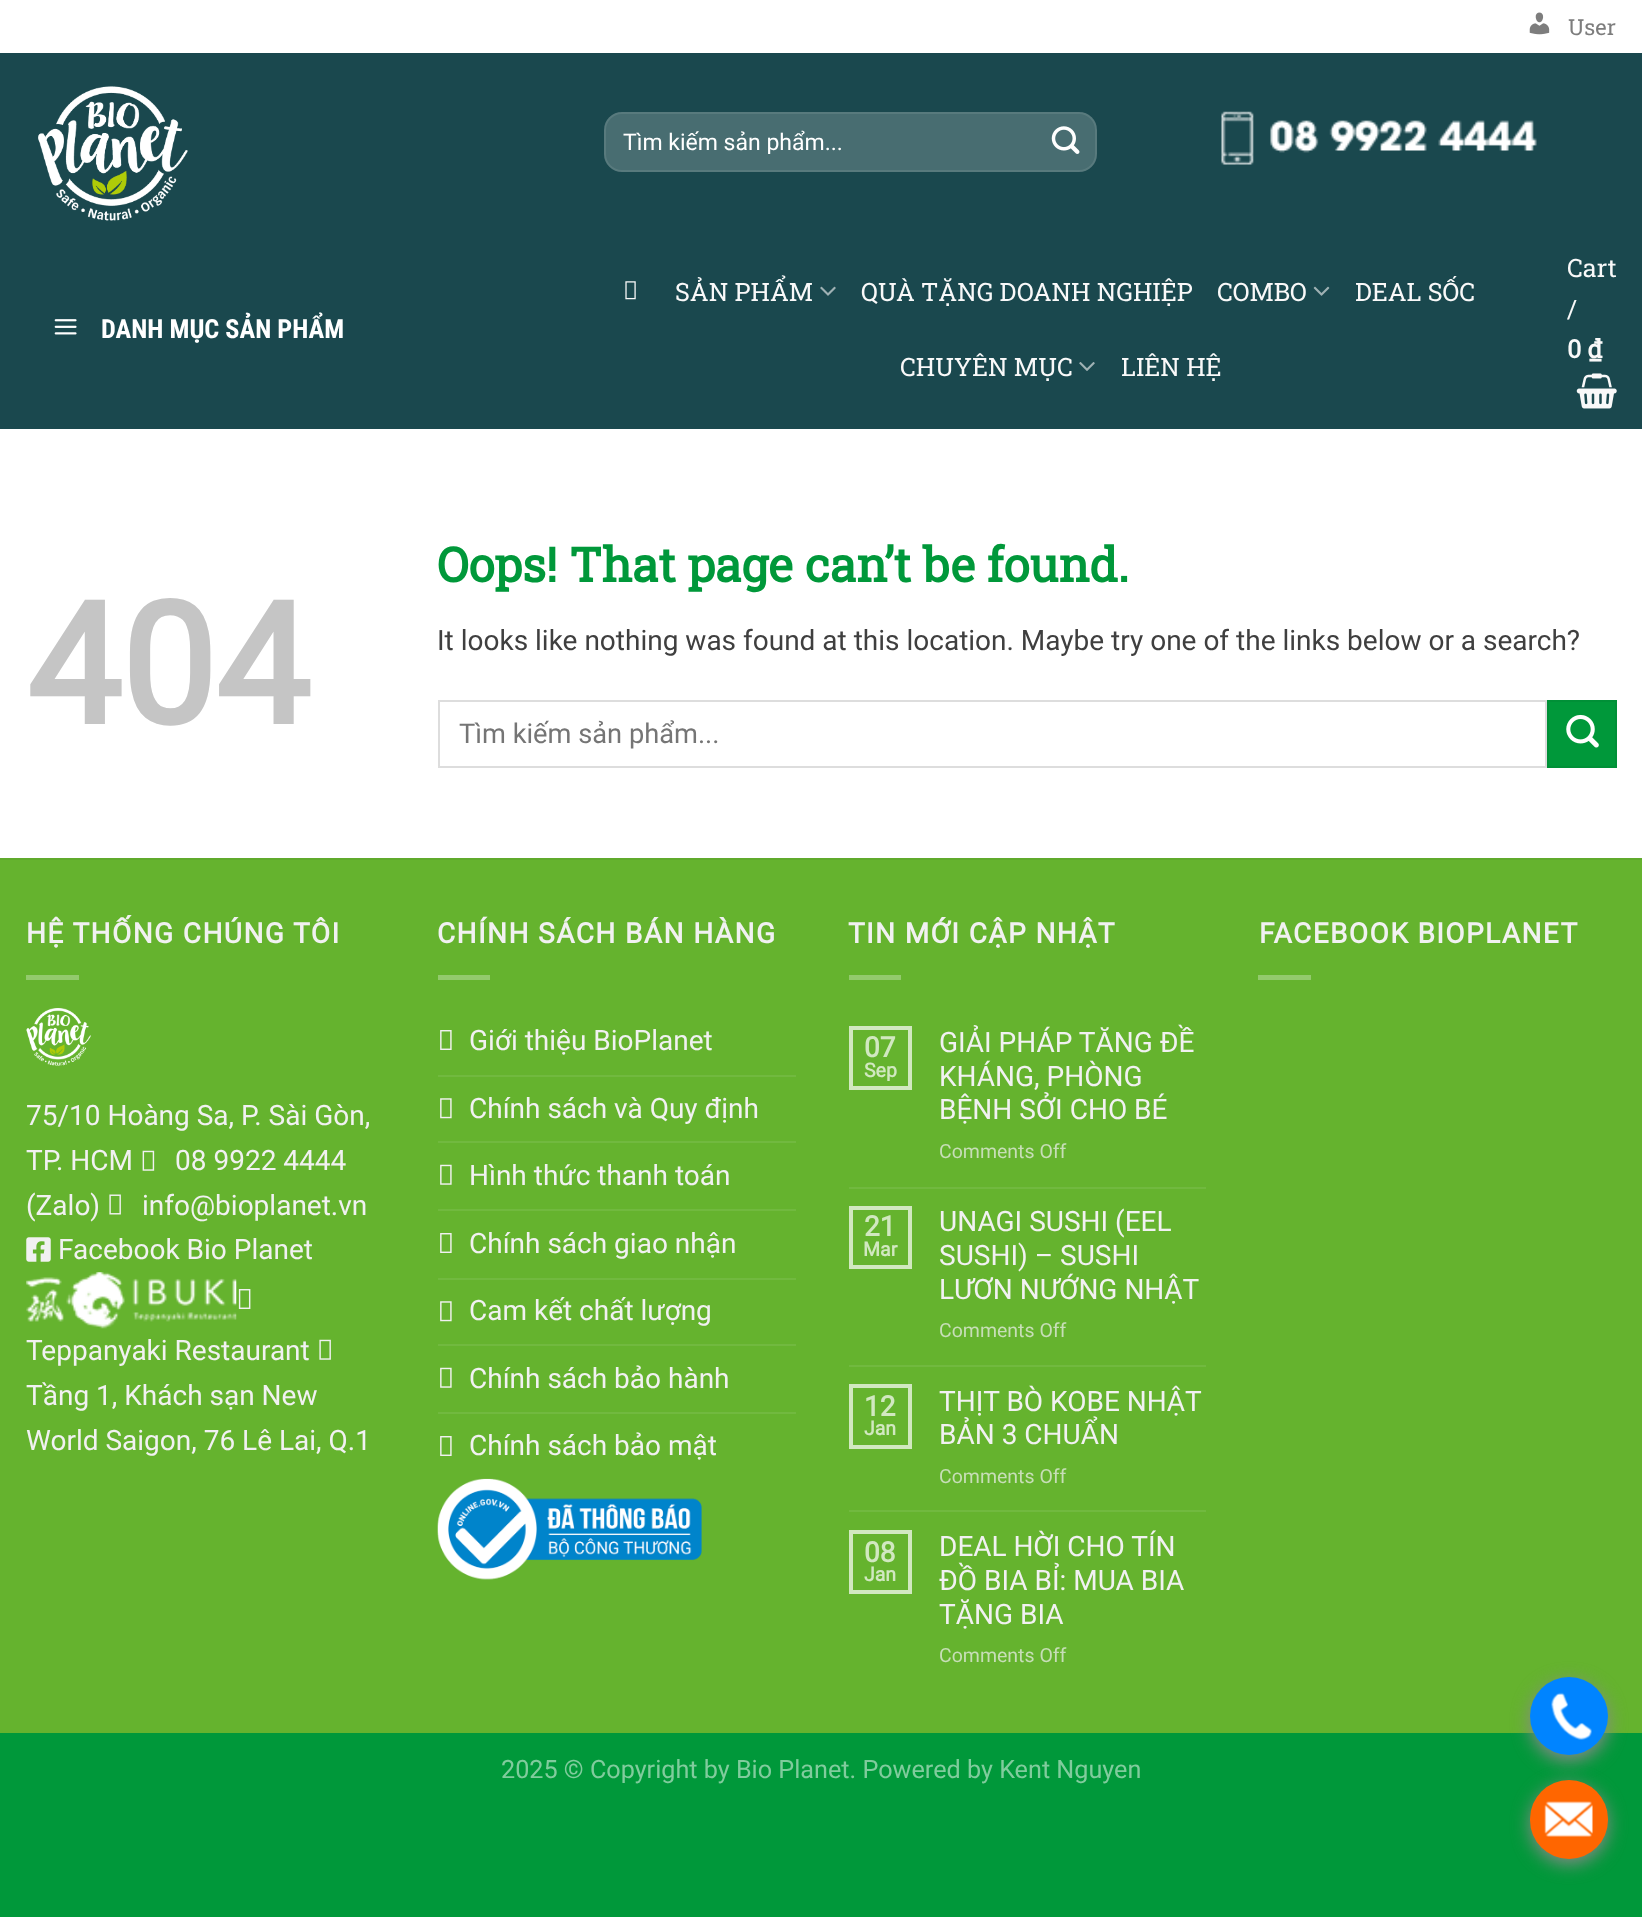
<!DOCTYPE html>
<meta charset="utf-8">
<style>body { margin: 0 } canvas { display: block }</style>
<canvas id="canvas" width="1642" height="1917"></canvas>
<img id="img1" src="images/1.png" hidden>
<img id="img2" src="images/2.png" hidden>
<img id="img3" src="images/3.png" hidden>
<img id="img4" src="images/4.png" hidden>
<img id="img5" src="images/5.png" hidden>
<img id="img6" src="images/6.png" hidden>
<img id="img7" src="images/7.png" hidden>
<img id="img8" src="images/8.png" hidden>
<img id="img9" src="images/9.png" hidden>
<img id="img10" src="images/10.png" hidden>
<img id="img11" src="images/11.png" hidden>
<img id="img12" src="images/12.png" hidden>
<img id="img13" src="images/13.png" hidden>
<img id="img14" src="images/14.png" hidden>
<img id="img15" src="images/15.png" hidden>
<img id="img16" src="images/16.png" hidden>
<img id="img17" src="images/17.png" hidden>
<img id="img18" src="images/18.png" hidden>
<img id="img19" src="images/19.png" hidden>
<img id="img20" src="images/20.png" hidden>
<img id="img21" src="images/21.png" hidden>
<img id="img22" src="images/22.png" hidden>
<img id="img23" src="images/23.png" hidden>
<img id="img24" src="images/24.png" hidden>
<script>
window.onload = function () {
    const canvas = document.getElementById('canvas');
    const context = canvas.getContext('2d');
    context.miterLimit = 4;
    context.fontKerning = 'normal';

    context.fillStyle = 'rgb(0, 152, 58)';
    context.fillRect(0, 0, 1642, 1917);
    context.fillStyle = 'rgb(255, 255, 255)';
    context.fillRect(0, 429, 1642, 429);
    context.fillStyle = 'rgb(26, 72, 78)';
    context.fillRect(0, 53, 1642, 376);
    context.fillStyle = 'rgb(255, 255, 255)';
    context.fillRect(0, 0, 1642, 53);
    context.drawImage(document.getElementById('img1'), 1529, 12, 21, 23);
    context.drawImage(document.getElementById('img2'), 38, 86, 150, 135);
    context.fillStyle = 'rgb(72, 109, 113)';
    context.beginPath();
    context.roundRect(604, 112, 493, 60, 18);
    context.fill();
    context.beginPath();
    context.roundRect(605, 113, 491, 58, 17);
    context.strokeStyle = 'rgba(255, 255, 255, 0.09)';
    context.lineWidth = 2;
    context.stroke();
    context.drawImage(document.getElementById('img3'), 1051, 126, 29, 28);
    context.drawImage(document.getElementById('img4'), 1221, 111, 316, 54);
    context.drawImage(document.getElementById('img5'), 54, 319, 23, 16);
    context.drawImage(document.getElementById('img6'), 625, 281, 11, 19);
    context.drawImage(document.getElementById('img7'), 820, 286, 16, 10);
    context.drawImage(document.getElementById('img8'), 1313, 286, 17, 10);
    context.drawImage(document.getElementById('img9'), 1079, 362, 16, 9);
    context.drawImage(document.getElementById('img10'), 1576, 373, 41, 36);
    context.strokeStyle = 'rgb(221, 221, 221)';
    context.strokeRect(439, 701, 1107, 66);
    context.fillStyle = 'rgb(0, 152, 58)';
    context.beginPath();
    context.rect(1548, 701, 68, 66);
    context.fill();
    context.strokeStyle = 'rgb(0, 144, 55)';
    context.stroke();
    context.drawImage(document.getElementById('img11'), 1566, 714, 33, 34);
    context.fillStyle = 'rgb(101, 179, 46)';
    context.fillRect(0, 860, 1642, 873);
    context.fillStyle = 'rgb(96, 170, 44)';
    context.fillRect(0, 858, 1642, 2);
    context.fillStyle = 'rgb(147, 202, 109)';
    context.fillRect(26, 975, 53, 5);
    context.drawImage(document.getElementById('img12'), 26, 1008, 65, 58);
    context.drawImage(document.getElementById('img13'), 142, 1150, 13, 21);
    context.drawImage(document.getElementById('img14'), 109, 1194, 12, 21);
    context.drawImage(document.getElementById('img15'), 26, 1237, 25, 25);
    context.drawImage(document.getElementById('img16'), 26, 1272, 211, 57);
    context.drawImage(document.getElementById('img17'), 238, 1289, 13, 20);
    context.drawImage(document.getElementById('img18'), 319, 1339, 12, 21);
    context.fillRect(438, 975, 52, 5);
    context.drawImage(document.getElementById('img19'), 440, 1030, 12, 20);
    context.fillStyle = 'rgb(113, 185, 63)';
    context.fillRect(438, 1075, 358, 2);
    context.drawImage(document.getElementById('img20'), 440, 1098, 12, 21);
    context.fillRect(438, 1141, 358, 2);
    context.drawImage(document.getElementById('img21'), 440, 1164, 12, 21);
    context.fillRect(438, 1209, 358, 2);
    context.drawImage(document.getElementById('img19'), 440, 1233, 12, 20);
    context.fillRect(438, 1278, 358, 2);
    context.drawImage(document.getElementById('img20'), 440, 1301, 12, 21);
    context.fillRect(438, 1344, 358, 2);
    context.drawImage(document.getElementById('img21'), 440, 1367, 12, 21);
    context.fillRect(438, 1412, 358, 2);
    context.drawImage(document.getElementById('img19'), 440, 1436, 12, 20);
    context.drawImage(document.getElementById('img22'), 437, 1478, 265, 102);
    context.fillStyle = 'rgb(147, 202, 109)';
    context.fillRect(849, 975, 52, 5);
    context.strokeStyle = 'rgb(209, 232, 192)';
    context.lineWidth = 4;
    context.strokeRect(851, 1028, 59, 60);
    context.fillStyle = 'rgb(113, 185, 63)';
    context.fillRect(849, 1187, 357, 2);
    context.strokeRect(851, 1208, 59, 59);
    context.fillRect(849, 1365, 357, 2);
    context.strokeRect(851, 1386, 59, 61);
    context.fillRect(849, 1510, 357, 2);
    context.strokeRect(851, 1532, 59, 60);
    context.fillStyle = 'rgb(147, 202, 109)';
    context.fillRect(1258, 975, 53, 5);
    context.fillStyle = 'rgb(136, 136, 136)';
    context.filter = 'blur(9px)';
    context.beginPath();
    context.roundRect(1530, 1682, 78, 79, 39);
    context.fill();
    context.filter = 'none';
    context.fillStyle = 'rgb(0, 132, 255)';
    context.beginPath();
    context.arc(1569, 1716, 39, 0, 2 * Math.PI);
    context.fill();
    context.drawImage(document.getElementById('img23'), 1551, 1692, 41, 48);
    context.fillStyle = 'rgb(136, 136, 136)';
    context.filter = 'blur(9px)';
    context.beginPath();
    context.roundRect(1530, 1785, 78, 79, 39);
    context.fill();
    context.filter = 'none';
    context.fillStyle = 'rgb(255, 102, 0)';
    context.beginPath();
    context.roundRect(1530, 1780, 78, 79, 39);
    context.fill();
    context.drawImage(document.getElementById('img24'), 1544, 1801, 49, 36);
    context.font = '22px Roboto Slab';
    context.fillStyle = 'rgb(125, 125, 125)';
    context.fillText('User', 1568, 35);
    context.save();
    context.beginPath();
    context.rect(623, 128, 448, 26);
    context.clip();
    context.font = '23px Roboto';
    context.fillStyle = 'rgb(255, 255, 255)';
    context.fillText('Tìm kiếm sản phẩm...', 623, 150);
    context.restore();
    context.font = 'bold 26.25px Roboto Condensed';
    context.fillStyle = 'rgb(255, 255, 255)';
    context.fillText('DANH MỤC SẢN PHẨM', 101, 338);
    context.font = '25.2px Roboto Slab';
    context.fillStyle = 'rgb(249, 249, 249)';
    context.fillText('SẢN PHẨM', 675, 301);
    context.fillText('QUÀ TẶNG DOANH NGHIỆP', 861, 301);
    context.fillText('COMBO', 1217, 301);
    context.fillText('DEAL SỐC', 1355, 301);
    context.fillText('CHUYÊN MỤC', 900, 376);
    context.fillText('LIÊN HỆ', 1121, 376);
    context.fillText('Cart', 1567, 277);
    context.fillText('/', 1567, 318);
    context.font = 'bold 25.2px Roboto Slab';
    context.fillText('0 ₫', 1567, 358);
    context.font = 'bold 168px Roboto';
    context.fillStyle = 'rgb(197, 197, 197)';
    context.fillText('404', 26, 724);
    context.font = 'bold 47.6px Roboto Slab';
    context.fillStyle = 'rgb(0, 152, 58)';
    context.fillText('Oops! That page can’t be found.', 437, 582);
    context.font = '28px Roboto';
    context.fillStyle = 'rgb(63, 63, 63)';
    context.fillText('It looks like nothing was found at this location. Maybe try one of the links below or a search?', 437, 650);
    context.font = '27.25px Roboto';
    context.fillStyle = 'rgb(117, 117, 117)';
    context.fillText('Tìm kiếm sản phẩm...', 459, 743);
    context.letterSpacing = '1.4px';
    context.font = 'bold 28px Roboto';
    context.fillStyle = 'rgb(241, 241, 241)';
    context.fillText('HỆ THỐNG CHÚNG TÔI', 26, 943);
    context.letterSpacing = '0px';
    context.font = '28px Roboto';
    context.fillText('75/10 Hoàng Sa, P. Sài Gòn,', 26, 1125);
    context.fillText('TP. HCM', 26, 1170);
    context.fillText('08 9922 4444', 175, 1170);
    context.fillText('(Zalo)', 26, 1215);
    context.fillText('info@bioplanet.vn', 142, 1215);
    context.fillText('Facebook Bio Planet', 58, 1259);
    context.fillText('Teppanyaki Restaurant', 26, 1360);
    context.fillText('Tầng 1, Khách sạn New', 26, 1405);
    context.fillText('World Saigon, 76 Lê Lai, Q.1', 26, 1450);
    context.letterSpacing = '1.4px';
    context.font = 'bold 28px Roboto';
    context.fillText('CHÍNH SÁCH BÁN HÀNG', 437, 943);
    context.letterSpacing = '0px';
    context.font = '28px Roboto';
    context.fillText('Giới thiệu BioPlanet', 469, 1050);
    context.fillText('Chính sách và Quy định', 469, 1118);
    context.fillText('Hình thức thanh toán', 469, 1185);
    context.fillText('Chính sách giao nhận', 469, 1253);
    context.fillText('Cam kết chất lượng', 469, 1320);
    context.fillText('Chính sách bảo hành', 469, 1388);
    context.fillText('Chính sách bảo mật', 469, 1455);
    context.letterSpacing = '1.4px';
    context.font = 'bold 28px Roboto';
    context.fillText('TIN MỚI CẬP NHẬT', 848, 943);
    context.letterSpacing = '0px';
    context.fillStyle = 'rgb(209, 232, 192)';
    context.fillText('07', 864, 1057);
    context.font = 'bold 19.5px Roboto';
    context.fillText('Sep', 864, 1077);
    context.font = '28px Roboto';
    context.fillStyle = 'rgb(241, 241, 241)';
    context.fillText('GIẢI PHÁP TĂNG ĐỀ', 939, 1052);
    context.fillText('KHÁNG, PHÒNG', 939, 1086);
    context.fillText('BỆNH SỞI CHO BÉ', 939, 1119);
    context.font = '19.5px Roboto';
    context.fillStyle = 'rgb(199, 222, 183)';
    context.fillText('Comments Off', 939, 1158);
    context.font = 'bold 28px Roboto';
    context.fillStyle = 'rgb(209, 232, 192)';
    context.fillText('21', 864, 1236);
    context.font = 'bold 19.5px Roboto';
    context.fillText('Mar', 863, 1256);
    context.font = '28px Roboto';
    context.fillStyle = 'rgb(241, 241, 241)';
    context.fillText('UNAGI SUSHI (EEL', 939, 1231);
    context.fillText('SUSHI) – SUSHI', 939, 1265);
    context.fillText('LƯƠN NƯỚNG NHẬT', 939, 1299);
    context.font = '19.5px Roboto';
    context.fillStyle = 'rgb(199, 222, 183)';
    context.fillText('Comments Off', 939, 1337);
    context.font = 'bold 28px Roboto';
    context.fillStyle = 'rgb(209, 232, 192)';
    context.fillText('12', 864, 1416);
    context.font = 'bold 19.5px Roboto';
    context.fillText('Jan', 864, 1435);
    context.font = '28px Roboto';
    context.fillStyle = 'rgb(241, 241, 241)';
    context.fillText('THỊT BÒ KOBE NHẬT', 939, 1411);
    context.fillText('BẢN 3 CHUẨN', 939, 1444);
    context.font = '19.5px Roboto';
    context.fillStyle = 'rgb(199, 222, 183)';
    context.fillText('Comments Off', 939, 1483);
    context.font = 'bold 28px Roboto';
    context.fillStyle = 'rgb(209, 232, 192)';
    context.fillText('08', 864, 1562);
    context.font = 'bold 19.5px Roboto';
    context.fillText('Jan', 864, 1581);
    context.font = '28px Roboto';
    context.fillStyle = 'rgb(241, 241, 241)';
    context.fillText('DEAL HỜI CHO TÍN', 939, 1556);
    context.fillText('ĐỒ BIA BỈ: MUA BIA', 939, 1590);
    context.fillText('TẶNG BIA', 939, 1624);
    context.font = '19.5px Roboto';
    context.fillStyle = 'rgb(199, 222, 183)';
    context.fillText('Comments Off', 939, 1662);
    context.letterSpacing = '1.4px';
    context.font = 'bold 28px Roboto';
    context.fillStyle = 'rgb(241, 241, 241)';
    context.fillText('FACEBOOK BIOPLANET', 1259, 943);
    context.letterSpacing = '0px';
    context.font = '25.2px Roboto';
    context.fillStyle = 'rgb(128, 204, 157)';
    context.fillText('2025 © Copyright by Bio Planet. Powered by Kent Nguyen', 501, 1778);
};
</script>
